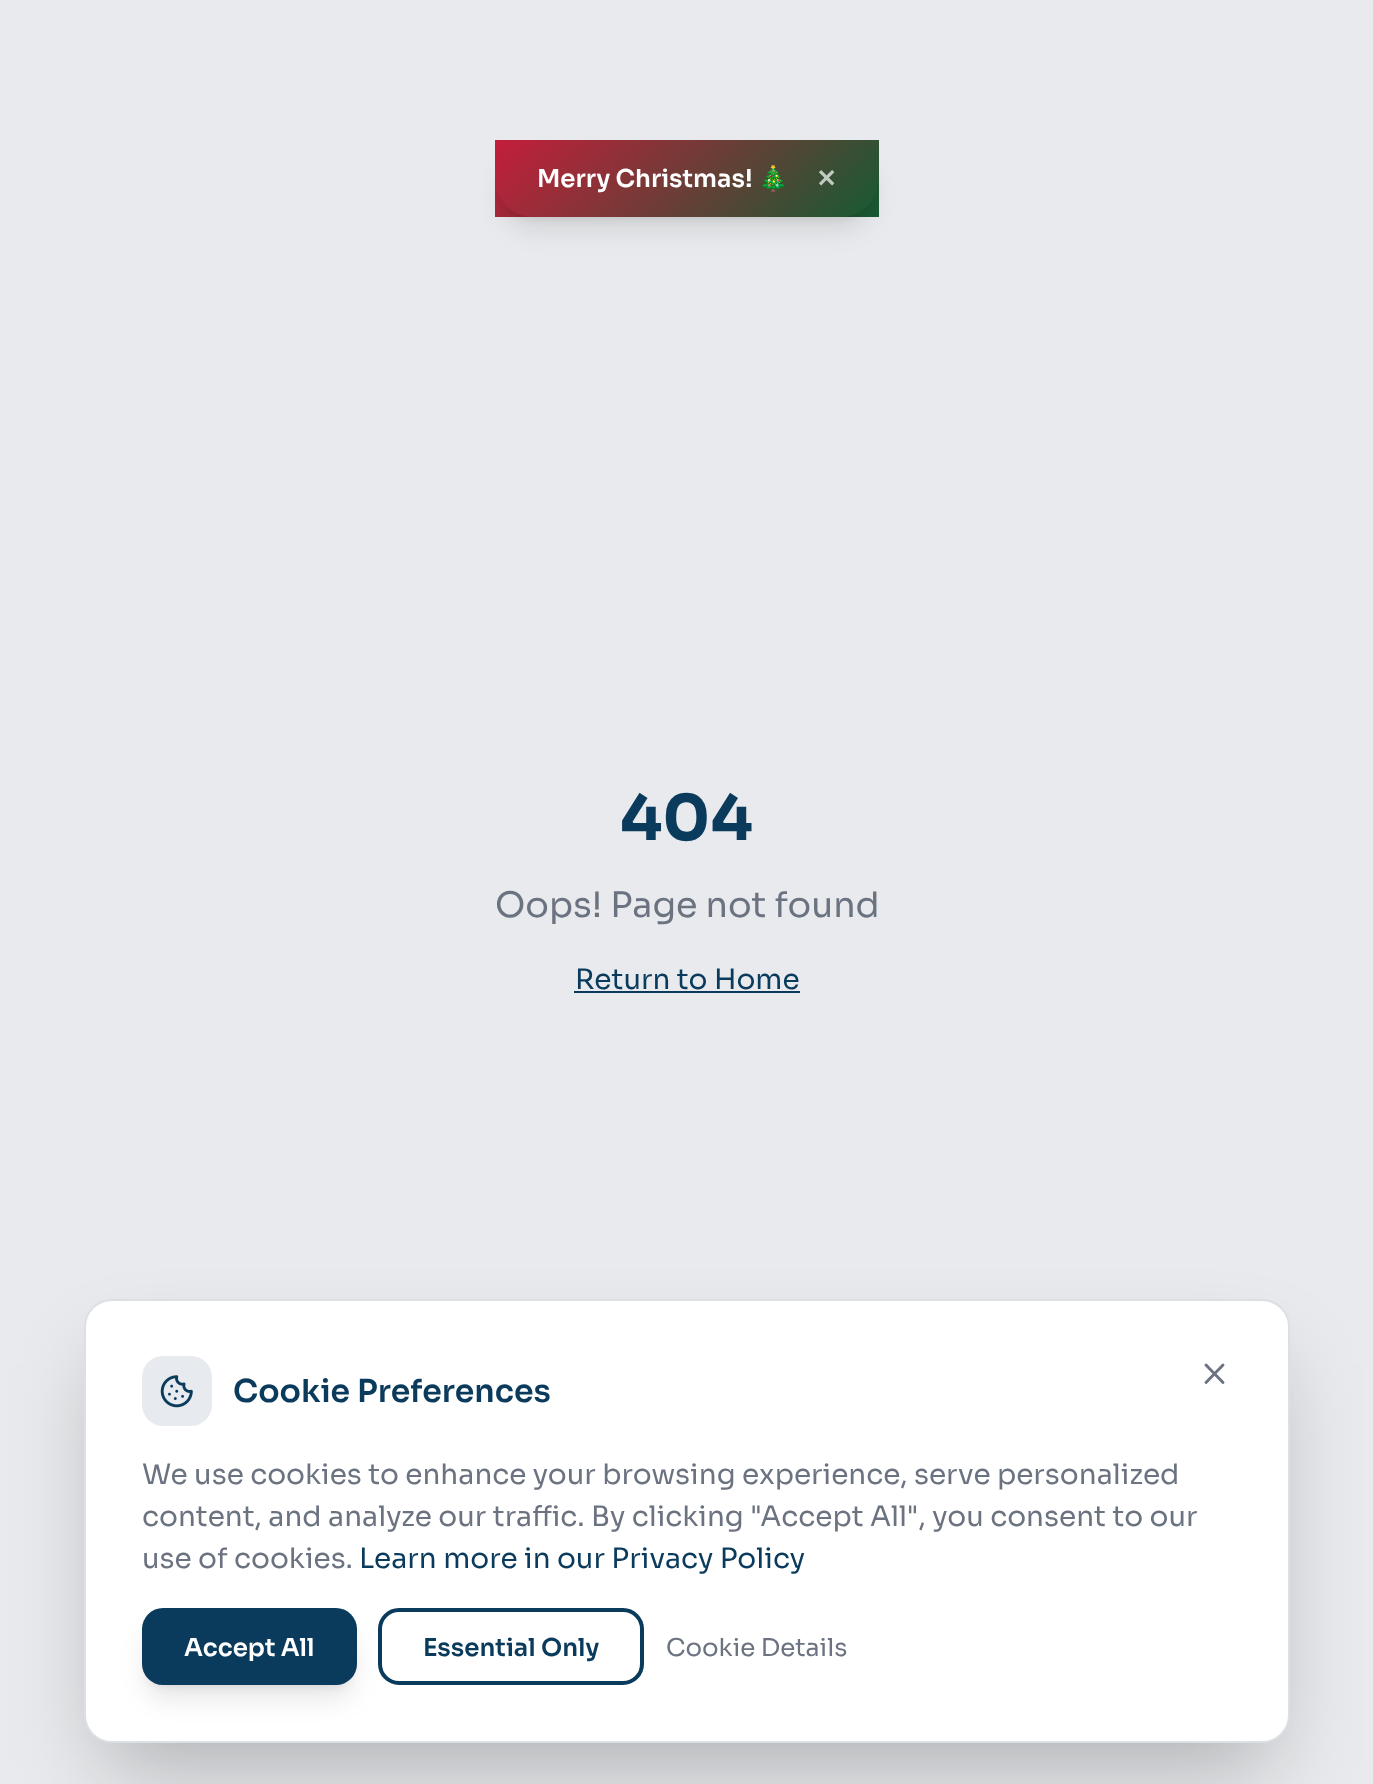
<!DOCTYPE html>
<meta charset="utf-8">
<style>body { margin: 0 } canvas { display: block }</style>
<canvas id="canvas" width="1373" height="1784"></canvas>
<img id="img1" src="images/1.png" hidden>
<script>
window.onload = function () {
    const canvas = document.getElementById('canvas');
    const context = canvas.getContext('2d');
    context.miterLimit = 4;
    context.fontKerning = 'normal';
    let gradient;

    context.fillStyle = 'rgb(232, 234, 237)';
    context.fillRect(0, 0, 1373, 1784);
    gradient = context.createLinearGradient(572, 63, 802, 294);
    gradient.addColorStop(0, 'rgb(196, 30, 58)');
    gradient.addColorStop(1, 'rgb(22, 91, 51)');
    context.fillStyle = gradient;
    context.fillRect(495, 140, 384, 77);
    context.save();
    context.beginPath();
    context.moveTo(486, 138);
    context.lineTo(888, 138);
    context.lineTo(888, 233);
    context.lineTo(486, 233);
    context.closePath();
    context.moveTo(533.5, 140);
    context.lineTo(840.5, 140);
    context.bezierCurveTo(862, 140, 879, 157, 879, 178.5);
    context.bezierCurveTo(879, 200, 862, 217, 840.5, 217);
    context.lineTo(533.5, 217);
    context.bezierCurveTo(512, 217, 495, 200, 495, 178.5);
    context.bezierCurveTo(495, 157, 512, 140, 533.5, 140);
    context.closePath();
    context.clip('evenodd');
    context.fillStyle = 'rgba(0, 0, 0, 0.1)';
    context.filter = 'blur(5px)';
    context.beginPath();
    context.roundRect(502, 154, 370, 63, 31.5);
    context.fill();
    context.filter = 'none';
    context.restore();
    context.save();
    context.beginPath();
    context.moveTo(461, 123);
    context.lineTo(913, 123);
    context.lineTo(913, 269);
    context.lineTo(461, 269);
    context.closePath();
    context.moveTo(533.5, 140);
    context.lineTo(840.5, 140);
    context.bezierCurveTo(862, 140, 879, 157, 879, 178.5);
    context.bezierCurveTo(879, 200, 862, 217, 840.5, 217);
    context.lineTo(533.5, 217);
    context.bezierCurveTo(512, 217, 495, 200, 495, 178.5);
    context.bezierCurveTo(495, 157, 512, 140, 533.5, 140);
    context.closePath();
    context.clip('evenodd');
    context.fillStyle = 'rgba(0, 0, 0, 0.1)';
    context.filter = 'blur(13px)';
    context.beginPath();
    context.roundRect(501, 163, 372, 66, 33);
    context.fill();
    context.filter = 'none';
    context.restore();
    context.fillStyle = 'rgb(10, 59, 92)';
    context.fillRect(574, 991, 226, 2);
    context.fillStyle = 'rgba(0, 0, 0, 0.25)';
    context.filter = 'blur(44px)';
    context.beginPath();
    context.roundRect(105, 1363, 1164, 403, 7);
    context.fill();
    context.filter = 'none';
    context.fillStyle = 'rgb(255, 255, 255)';
    context.beginPath();
    context.roundRect(85, 1300, 1204, 442, 27);
    context.fill();
    context.strokeStyle = 'rgb(220, 223, 228)';
    context.lineWidth = 2;
    context.stroke();
    context.beginPath();
    context.moveTo(1223, 1365);
    context.lineTo(1206, 1382.5);
    context.moveTo(1206, 1365);
    context.lineTo(1223, 1382.5);
    context.strokeStyle = 'rgb(107, 114, 128)';
    context.lineWidth = 2.9;
    context.lineCap = 'round';
    context.lineJoin = 'round';
    context.stroke();
    context.fillStyle = 'rgb(231, 235, 239)';
    context.beginPath();
    context.roundRect(142, 1356, 70, 70, 21);
    context.fill();
    context.drawImage(document.getElementById('img1'), 160, 1375, 33, 33);
    context.fillStyle = 'rgba(0, 0, 0, 0.1)';
    context.filter = 'blur(5px)';
    context.beginPath();
    context.roundRect(149, 1622, 201, 63, 14);
    context.fill();
    context.filter = 'none';
    context.filter = 'blur(13px)';
    context.beginPath();
    context.roundRect(147, 1631, 205, 67, 16);
    context.fill();
    context.filter = 'none';
    context.fillStyle = 'rgb(10, 59, 92)';
    context.beginPath();
    context.roundRect(142, 1608, 215, 77, 21);
    context.fill();
    context.beginPath();
    context.roundRect(380, 1610, 262, 73, 19);
    context.strokeStyle = 'rgb(10, 59, 92)';
    context.lineWidth = 4;
    context.lineJoin = 'miter';
    context.stroke();
    context.font = '600 24.5px Sora';
    context.fillStyle = 'rgb(255, 255, 255)';
    context.fillText('Merry Christmas!', 537, 187);
    context.font = 'bold 24.5px Noto Color Emoji';
    context.fillText('🎄', 758, 187);
    context.font = 'bold 24.5px DejaVu Sans';
    context.fillStyle = 'rgb(195, 202, 194)';
    context.fillText('✕', 816, 187);
    context.font = 'bold 63px Sora';
    context.fillStyle = 'rgb(10, 59, 92)';
    context.fillText('404', 620, 840);
    context.font = '35px Sora';
    context.fillStyle = 'rgb(107, 114, 128)';
    context.fillText('Oops! Page not found', 495, 917);
    context.font = '28px Sora';
    context.fillStyle = 'rgb(10, 59, 92)';
    context.fillText('Return to Home', 575, 989);
    context.font = '600 31.5px Sora';
    context.fillText('Cookie Preferences', 233, 1402);
    context.font = '28px Sora';
    context.fillStyle = 'rgb(107, 114, 128)';
    context.fillText('We use cookies to enhance your browsing experience, serve personalized', 142, 1484);
    context.fillText('content, and analyze our traffic. By clicking "Accept All", you consent to our', 142, 1526);
    context.fillText('use of cookies.', 142, 1568);
    context.fillStyle = 'rgb(10, 59, 92)';
    context.fillText('Learn more in our Privacy Policy', 359, 1568);
    context.font = '600 24.5px Sora';
    context.fillStyle = 'rgb(255, 255, 255)';
    context.fillText('Accept All', 184, 1656);
    context.fillStyle = 'rgb(10, 59, 92)';
    context.fillText('Essential Only', 423, 1656);
    context.font = '24.5px Sora';
    context.fillStyle = 'rgb(107, 114, 128)';
    context.fillText('Cookie Details', 666, 1656);
};
</script>
